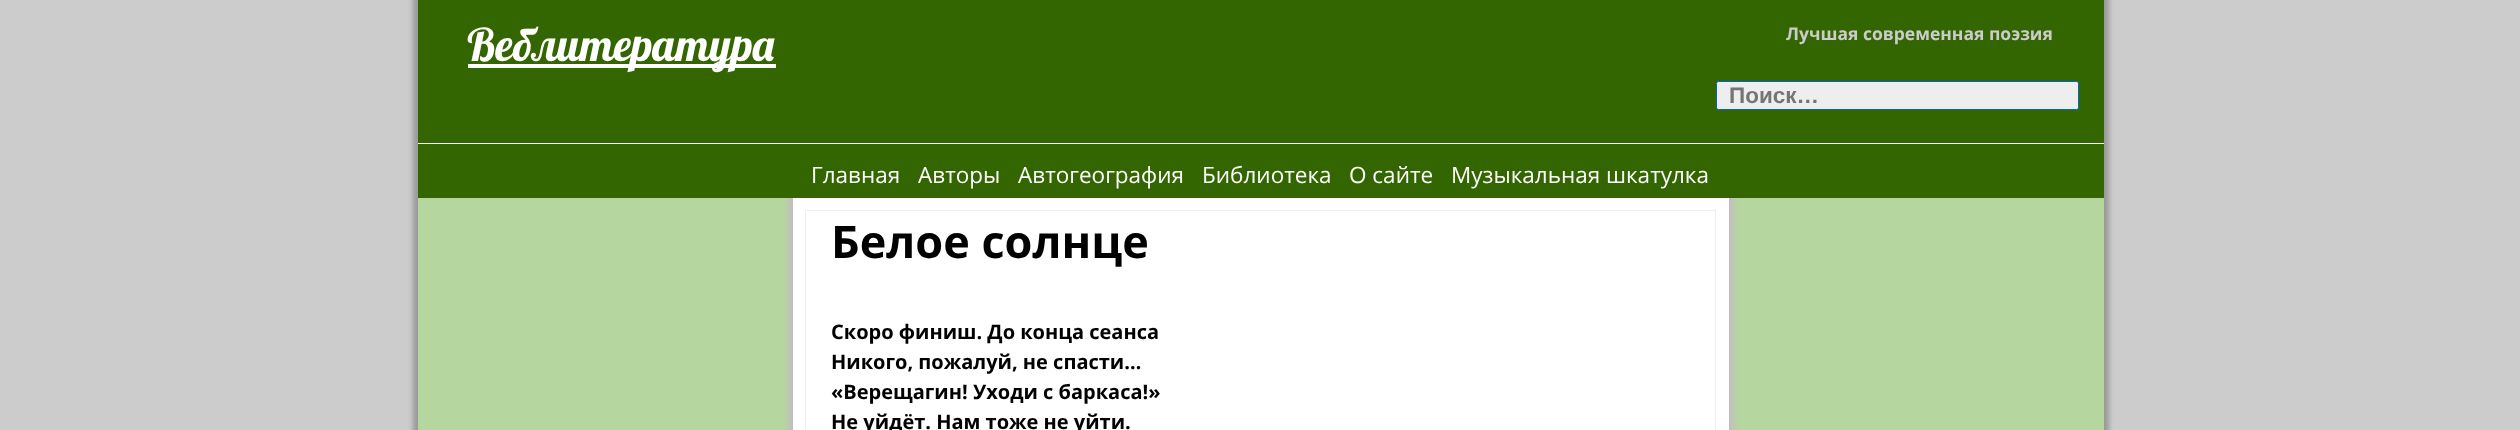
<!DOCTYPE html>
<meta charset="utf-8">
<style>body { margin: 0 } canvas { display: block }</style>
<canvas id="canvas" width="2520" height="430"></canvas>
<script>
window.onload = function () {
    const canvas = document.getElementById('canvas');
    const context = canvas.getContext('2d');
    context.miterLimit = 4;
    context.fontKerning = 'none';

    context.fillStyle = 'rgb(204, 204, 204)';
    context.fillRect(0, 0, 2520, 430);
    context.fillStyle = 'rgb(153, 153, 153)';
    context.filter = 'blur(2.5px)';
    context.beginPath();
    context.rect(413, -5, 1696, 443);
    context.fill();
    context.filter = 'none';
    context.fillStyle = 'rgb(182, 214, 160)';
    context.fillRect(418, 198, 1686, 232);
    context.fillStyle = 'rgb(51, 102, 0)';
    context.fillRect(418, 0, 1686, 143);
    context.fillStyle = 'rgb(255, 255, 255)';
    context.fillRect(468, 64, 308, 4);
    context.fillStyle = 'rgb(238, 238, 238)';
    context.beginPath();
    context.roundRect(1716.5, 81.5, 362, 28, 2);
    context.fill();
    context.strokeStyle = 'rgb(0, 102, 204)';
    context.stroke();
    context.fillStyle = 'rgb(191, 191, 191)';
    context.filter = 'blur(2.5px)';
    context.beginPath();
    context.rect(788, 193, 946, 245);
    context.fill();
    context.filter = 'none';
    context.fillStyle = 'rgb(51, 102, 0)';
    context.fillRect(418, 144, 1686, 54);
    context.fillStyle = 'rgb(255, 255, 255)';
    context.fillRect(418, 143, 1686, 1);
    context.fillRect(793, 198, 936, 232);
    context.strokeStyle = 'rgb(238, 238, 238)';
    context.strokeRect(805.5, 210.5, 910, 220);
    context.font = '45px Lobster';
    context.fillText('Веблитература', 467, 61);
    context.font = 'bold 17.5px Open Sans';
    context.fillStyle = 'rgb(204, 204, 204)';
    context.fillText('Лучшая современная поэзия', 1786, 40);
    context.font = 'bold 22.5px Liberation Sans';
    context.fillStyle = 'rgb(117, 117, 117)';
    context.fillText('Поиск…', 1729, 103);
    context.font = '22.5px Open Sans';
    context.fillStyle = 'rgb(255, 255, 255)';
    context.fillText('Главная', 811, 183);
    context.fillText('Авторы', 918, 183);
    context.fillText('Автогеография', 1018, 183);
    context.fillText('Библиотека', 1202, 183);
    context.fillText('О сайте', 1349, 183);
    context.fillText('Музыкальная шкатулка', 1451, 183);
    context.font = 'bold 45px Open Sans';
    context.fillStyle = 'rgb(0, 0, 0)';
    context.fillText('Белое солнце', 831, 258);
    context.font = 'bold 20px Open Sans';
    context.fillText('Скоро финиш. До конца сеанса', 831, 339);
    context.fillText('Никого, пожалуй, не спасти…', 831, 369);
    context.fillText('«Верещагин! Уходи с баркаса!»', 831, 399);
    context.fillText('Не уйдёт. Нам тоже не уйти.', 831, 429);
};
</script>
